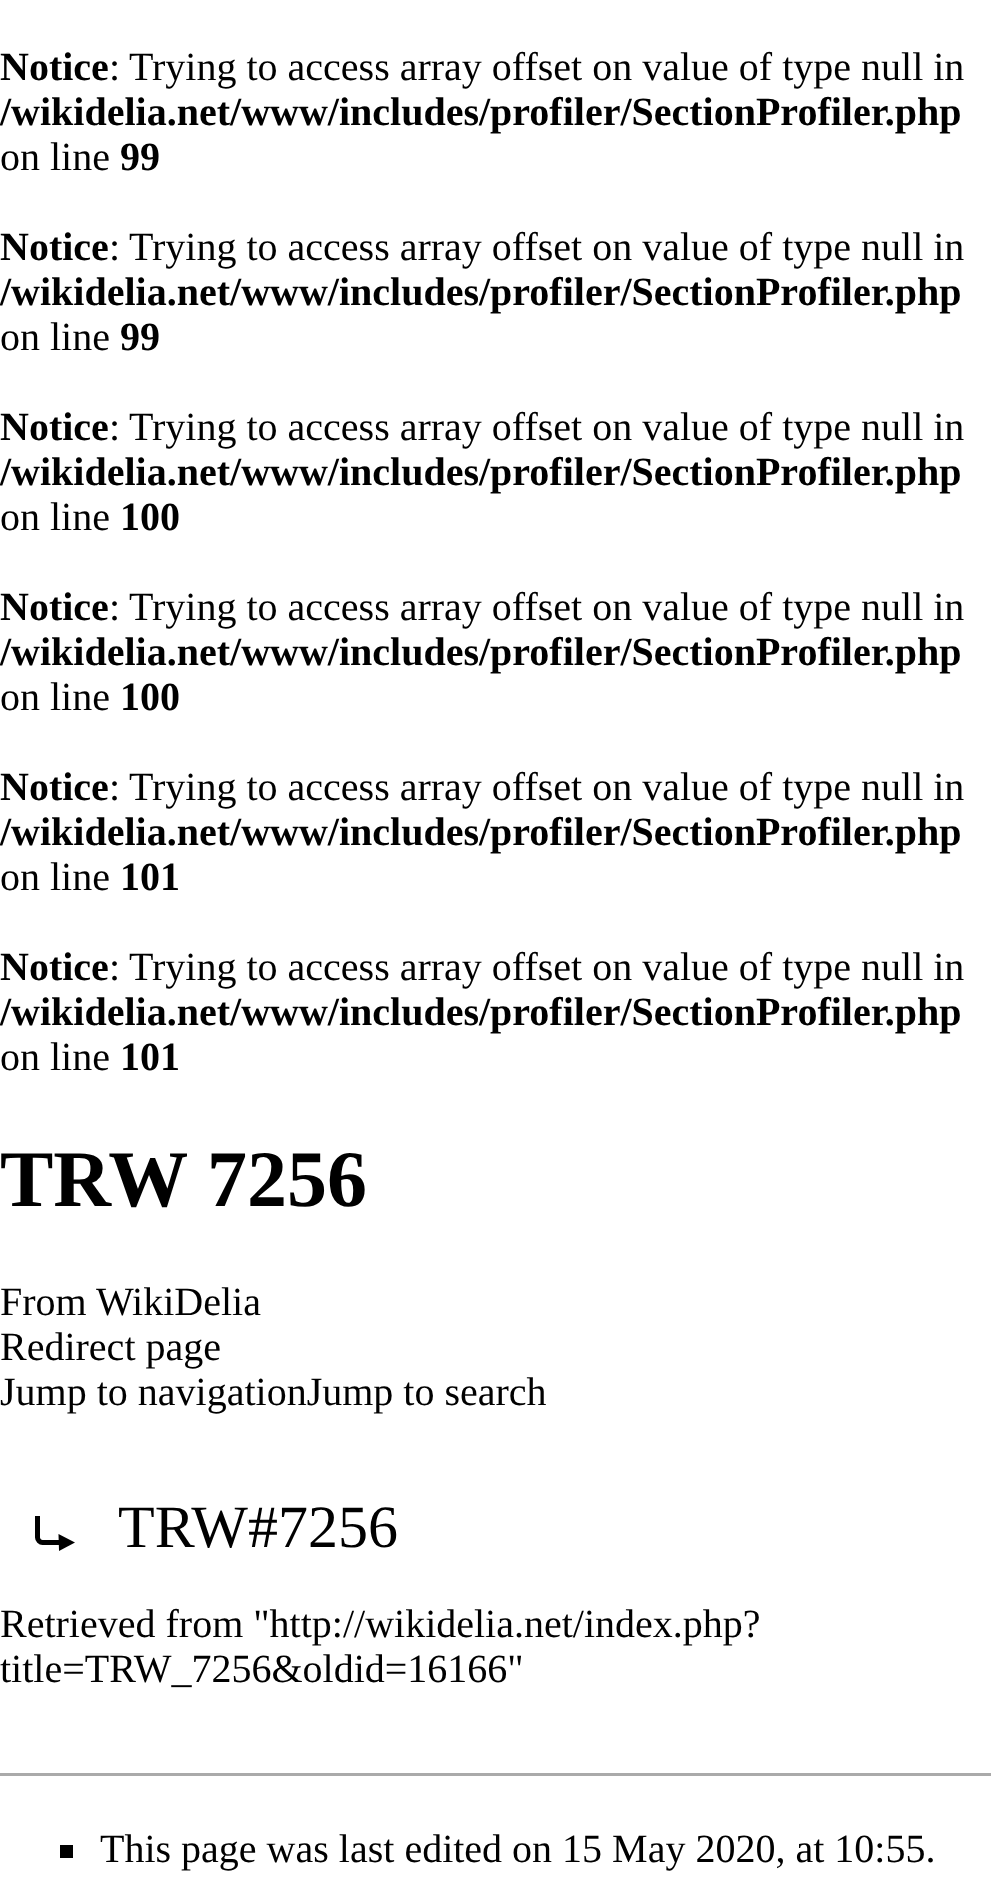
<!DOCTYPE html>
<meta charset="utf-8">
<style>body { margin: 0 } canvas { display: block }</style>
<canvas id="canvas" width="991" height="1878"></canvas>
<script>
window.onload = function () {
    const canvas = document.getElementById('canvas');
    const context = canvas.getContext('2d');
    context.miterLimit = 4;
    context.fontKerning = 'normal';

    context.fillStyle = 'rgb(255, 255, 255)';
    context.fillRect(0, 0, 991, 1878);
    context.beginPath();
    context.moveTo(37.5, 1516);
    context.lineTo(37.5, 1537.5);
    context.bezierCurveTo(37.5, 1540, 40, 1542.5, 42.5, 1542.5);
    context.lineTo(65, 1542.5);
    context.strokeStyle = 'rgb(0, 0, 0)';
    context.lineWidth = 5;
    context.stroke();
    context.fillStyle = 'rgb(0, 0, 0)';
    context.beginPath();
    context.moveTo(58.5, 1534);
    context.lineTo(59, 1551);
    context.lineTo(75, 1542.5);
    context.closePath();
    context.fill();
    context.fillStyle = 'rgb(170, 170, 170)';
    context.fillRect(0, 1773, 991, 3);
    context.fillStyle = 'rgb(0, 0, 0)';
    context.fillRect(60, 1845, 13, 13);
    context.font = 'bold 40px Liberation Serif';
    context.fillText('Notice', 0, 80);
    context.font = '40px Liberation Serif';
    context.fillText(':', 109, 80);
    context.fillText('Trying to access array offset on value of type null in', 129, 80);
    context.font = 'bold 40px Liberation Serif';
    context.fillText('/wikidelia.net/www/includes/profiler/SectionProfiler.php', 0, 125);
    context.font = '40px Liberation Serif';
    context.fillText('on line', 0, 170);
    context.font = 'bold 40px Liberation Serif';
    context.fillText('99', 120, 170);
    context.fillText('Notice', 0, 260);
    context.font = '40px Liberation Serif';
    context.fillText(':', 109, 260);
    context.fillText('Trying to access array offset on value of type null in', 129, 260);
    context.font = 'bold 40px Liberation Serif';
    context.fillText('/wikidelia.net/www/includes/profiler/SectionProfiler.php', 0, 305);
    context.font = '40px Liberation Serif';
    context.fillText('on line', 0, 350);
    context.font = 'bold 40px Liberation Serif';
    context.fillText('99', 120, 350);
    context.fillText('Notice', 0, 440);
    context.font = '40px Liberation Serif';
    context.fillText(':', 109, 440);
    context.fillText('Trying to access array offset on value of type null in', 129, 440);
    context.font = 'bold 40px Liberation Serif';
    context.fillText('/wikidelia.net/www/includes/profiler/SectionProfiler.php', 0, 485);
    context.font = '40px Liberation Serif';
    context.fillText('on line', 0, 530);
    context.font = 'bold 40px Liberation Serif';
    context.fillText('100', 120, 530);
    context.fillText('Notice', 0, 620);
    context.font = '40px Liberation Serif';
    context.fillText(':', 109, 620);
    context.fillText('Trying to access array offset on value of type null in', 129, 620);
    context.font = 'bold 40px Liberation Serif';
    context.fillText('/wikidelia.net/www/includes/profiler/SectionProfiler.php', 0, 665);
    context.font = '40px Liberation Serif';
    context.fillText('on line', 0, 710);
    context.font = 'bold 40px Liberation Serif';
    context.fillText('100', 120, 710);
    context.fillText('Notice', 0, 800);
    context.font = '40px Liberation Serif';
    context.fillText(':', 109, 800);
    context.fillText('Trying to access array offset on value of type null in', 129, 800);
    context.font = 'bold 40px Liberation Serif';
    context.fillText('/wikidelia.net/www/includes/profiler/SectionProfiler.php', 0, 845);
    context.font = '40px Liberation Serif';
    context.fillText('on line', 0, 890);
    context.font = 'bold 40px Liberation Serif';
    context.fillText('101', 120, 890);
    context.fillText('Notice', 0, 980);
    context.font = '40px Liberation Serif';
    context.fillText(':', 109, 980);
    context.fillText('Trying to access array offset on value of type null in', 129, 980);
    context.font = 'bold 40px Liberation Serif';
    context.fillText('/wikidelia.net/www/includes/profiler/SectionProfiler.php', 0, 1025);
    context.font = '40px Liberation Serif';
    context.fillText('on line', 0, 1070);
    context.font = 'bold 40px Liberation Serif';
    context.fillText('101', 120, 1070);
    context.font = 'bold 80px Liberation Serif';
    context.fillText('TRW 7256', 0, 1206);
    context.font = '40px Liberation Serif';
    context.fillText('From WikiDelia', 0, 1315);
    context.fillText('Redirect page', 0, 1360);
    context.fillText('Jump to navigationJump to search', 0, 1405);
    context.font = '60px Liberation Serif';
    context.fillText('TRW#7256', 118, 1547);
    context.font = '40px Liberation Serif';
    context.fillText('Retrieved from "http://wikidelia.net/index.php?', 0, 1637);
    context.fillText('title=TRW_7256&oldid=16166"', 0, 1682);
    context.fillText('This page was last edited on 15 May 2020, at 10:55.', 100, 1862);
};
</script>
